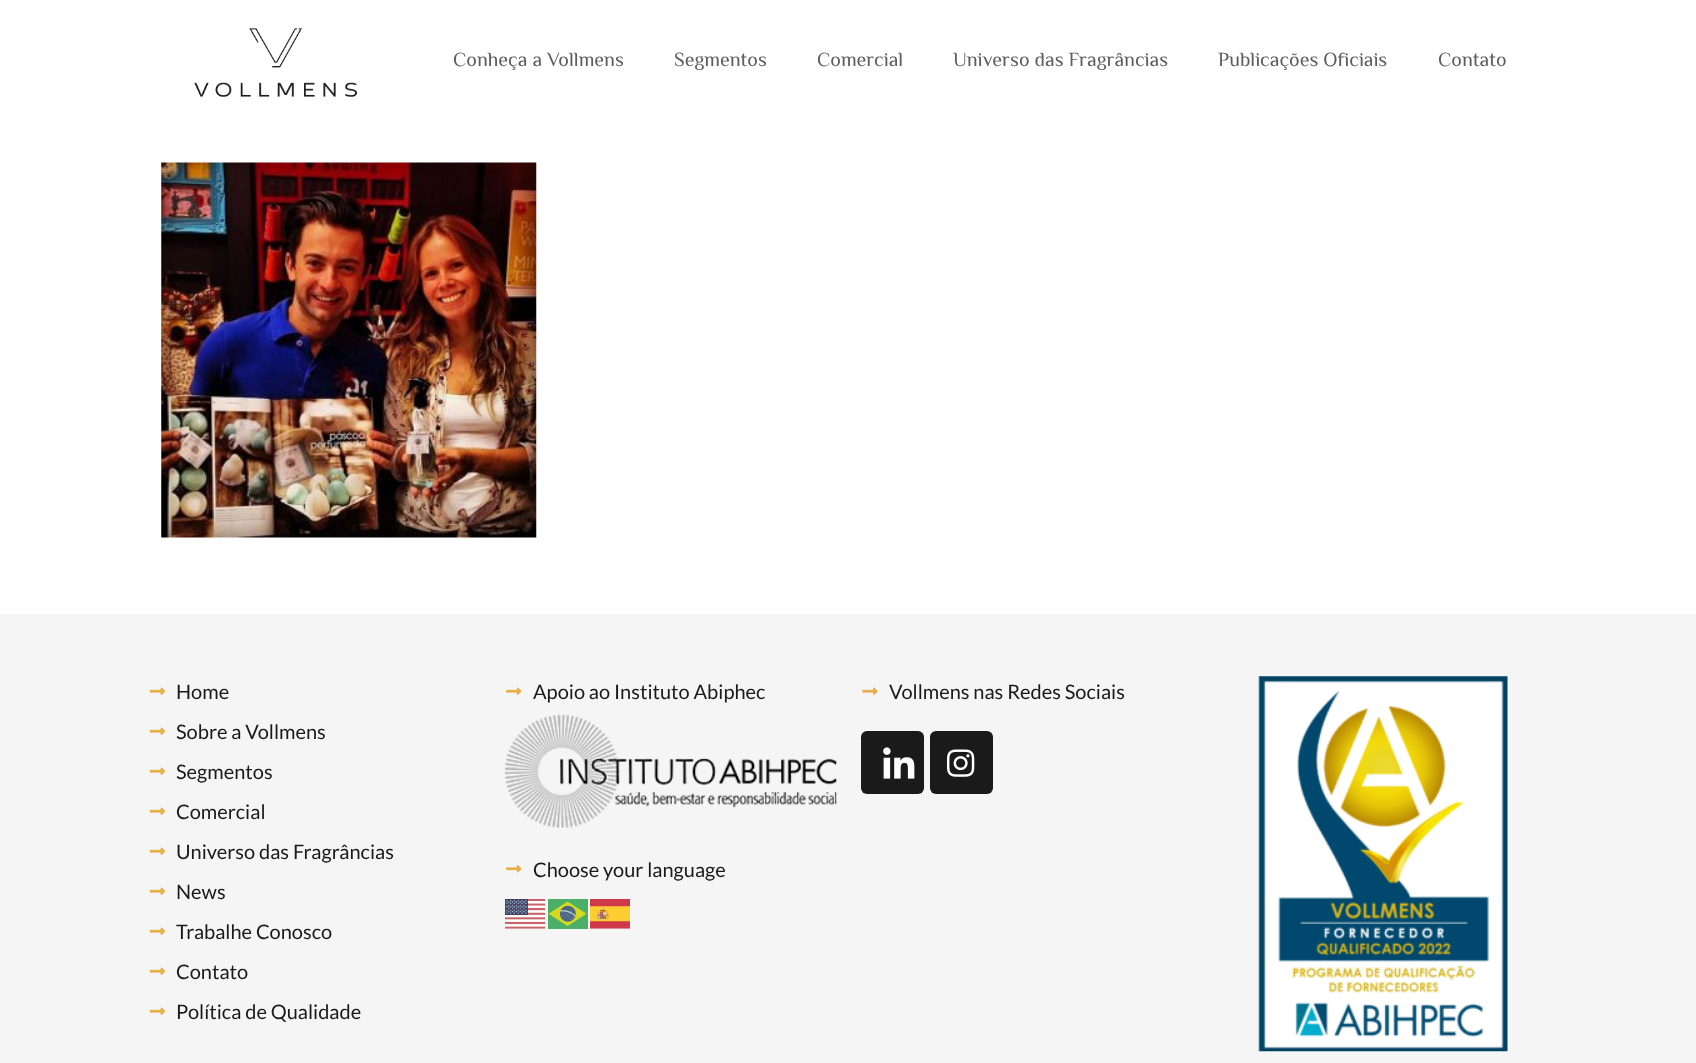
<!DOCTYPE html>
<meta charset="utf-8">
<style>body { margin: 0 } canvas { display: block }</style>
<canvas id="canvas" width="1696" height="1063"></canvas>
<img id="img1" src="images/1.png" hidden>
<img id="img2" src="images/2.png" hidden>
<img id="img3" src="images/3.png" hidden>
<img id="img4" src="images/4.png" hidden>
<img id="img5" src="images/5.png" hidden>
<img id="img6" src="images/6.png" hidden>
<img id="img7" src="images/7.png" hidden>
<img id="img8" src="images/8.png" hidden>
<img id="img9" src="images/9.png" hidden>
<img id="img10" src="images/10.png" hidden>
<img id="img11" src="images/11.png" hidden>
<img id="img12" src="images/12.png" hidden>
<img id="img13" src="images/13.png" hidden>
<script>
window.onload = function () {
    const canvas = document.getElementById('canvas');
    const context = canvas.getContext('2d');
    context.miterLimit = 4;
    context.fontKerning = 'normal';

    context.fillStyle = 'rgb(255, 255, 255)';
    context.fillRect(0, 0, 1696, 1063);
    context.drawImage(document.getElementById('img1'), 194, 28, 163, 69);
    context.drawImage(document.getElementById('img2'), 161, 162, 376, 376);
    context.fillStyle = 'rgb(245, 245, 245)';
    context.fillRect(0, 614, 1696, 449);
    context.drawImage(document.getElementById('img3'), 149, 687, 17, 8);
    context.drawImage(document.getElementById('img3'), 149, 727, 17, 8);
    context.drawImage(document.getElementById('img3'), 149, 767, 17, 8);
    context.drawImage(document.getElementById('img3'), 149, 807, 17, 8);
    context.drawImage(document.getElementById('img3'), 149, 847, 17, 8);
    context.drawImage(document.getElementById('img3'), 149, 887, 17, 8);
    context.drawImage(document.getElementById('img3'), 149, 927, 17, 8);
    context.drawImage(document.getElementById('img3'), 149, 967, 17, 8);
    context.drawImage(document.getElementById('img3'), 149, 1007, 17, 8);
    context.drawImage(document.getElementById('img4'), 506, 687, 16, 8);
    context.drawImage(document.getElementById('img5'), 505, 714, 332, 114);
    context.drawImage(document.getElementById('img6'), 506, 865, 16, 8);
    context.drawImage(document.getElementById('img7'), 505, 899, 40, 30);
    context.drawImage(document.getElementById('img8'), 548, 899, 40, 30);
    context.drawImage(document.getElementById('img9'), 590, 899, 40, 30);
    context.drawImage(document.getElementById('img10'), 862, 687, 16, 8);
    context.fillStyle = 'rgb(26, 26, 26)';
    context.beginPath();
    context.roundRect(861, 731, 63, 63, 6);
    context.fill();
    context.drawImage(document.getElementById('img11'), 883, 747, 32, 32);
    context.beginPath();
    context.roundRect(930, 731, 63, 63, 6);
    context.fill();
    context.drawImage(document.getElementById('img12'), 946, 749, 29, 28);
    context.drawImage(document.getElementById('img13'), 1258, 676, 250, 376);
    context.font = '20px El Messiri';
    context.fillStyle = 'rgb(94, 94, 94)';
    context.fillText('Conheça a Vollmens', 453, 66);
    context.fillText('Segmentos', 674, 66);
    context.fillText('Comercial', 817, 66);
    context.fillText('Universo das Fragrâncias', 953, 66);
    context.fillText('Publicações Oficiais', 1218, 66);
    context.fillText('Contato', 1438, 66);
    context.font = '20px Lato';
    context.fillStyle = 'rgb(26, 26, 26)';
    context.fillText('Home', 176, 699);
    context.fillText('Sobre a Vollmens', 176, 739);
    context.fillText('Segmentos', 176, 779);
    context.fillText('Comercial', 176, 819);
    context.fillText('Universo das Fragrâncias', 176, 859);
    context.fillText('News', 176, 899);
    context.fillText('Trabalhe Conosco', 176, 939);
    context.fillText('Contato', 176, 979);
    context.fillText('Política de Qualidade', 176, 1019);
    context.fillText('Apoio ao Instituto Abiphec', 533, 699);
    context.fillText('Choose your language', 533, 877);
    context.fillText('Vollmens nas Redes Sociais', 889, 699);
};
</script>
